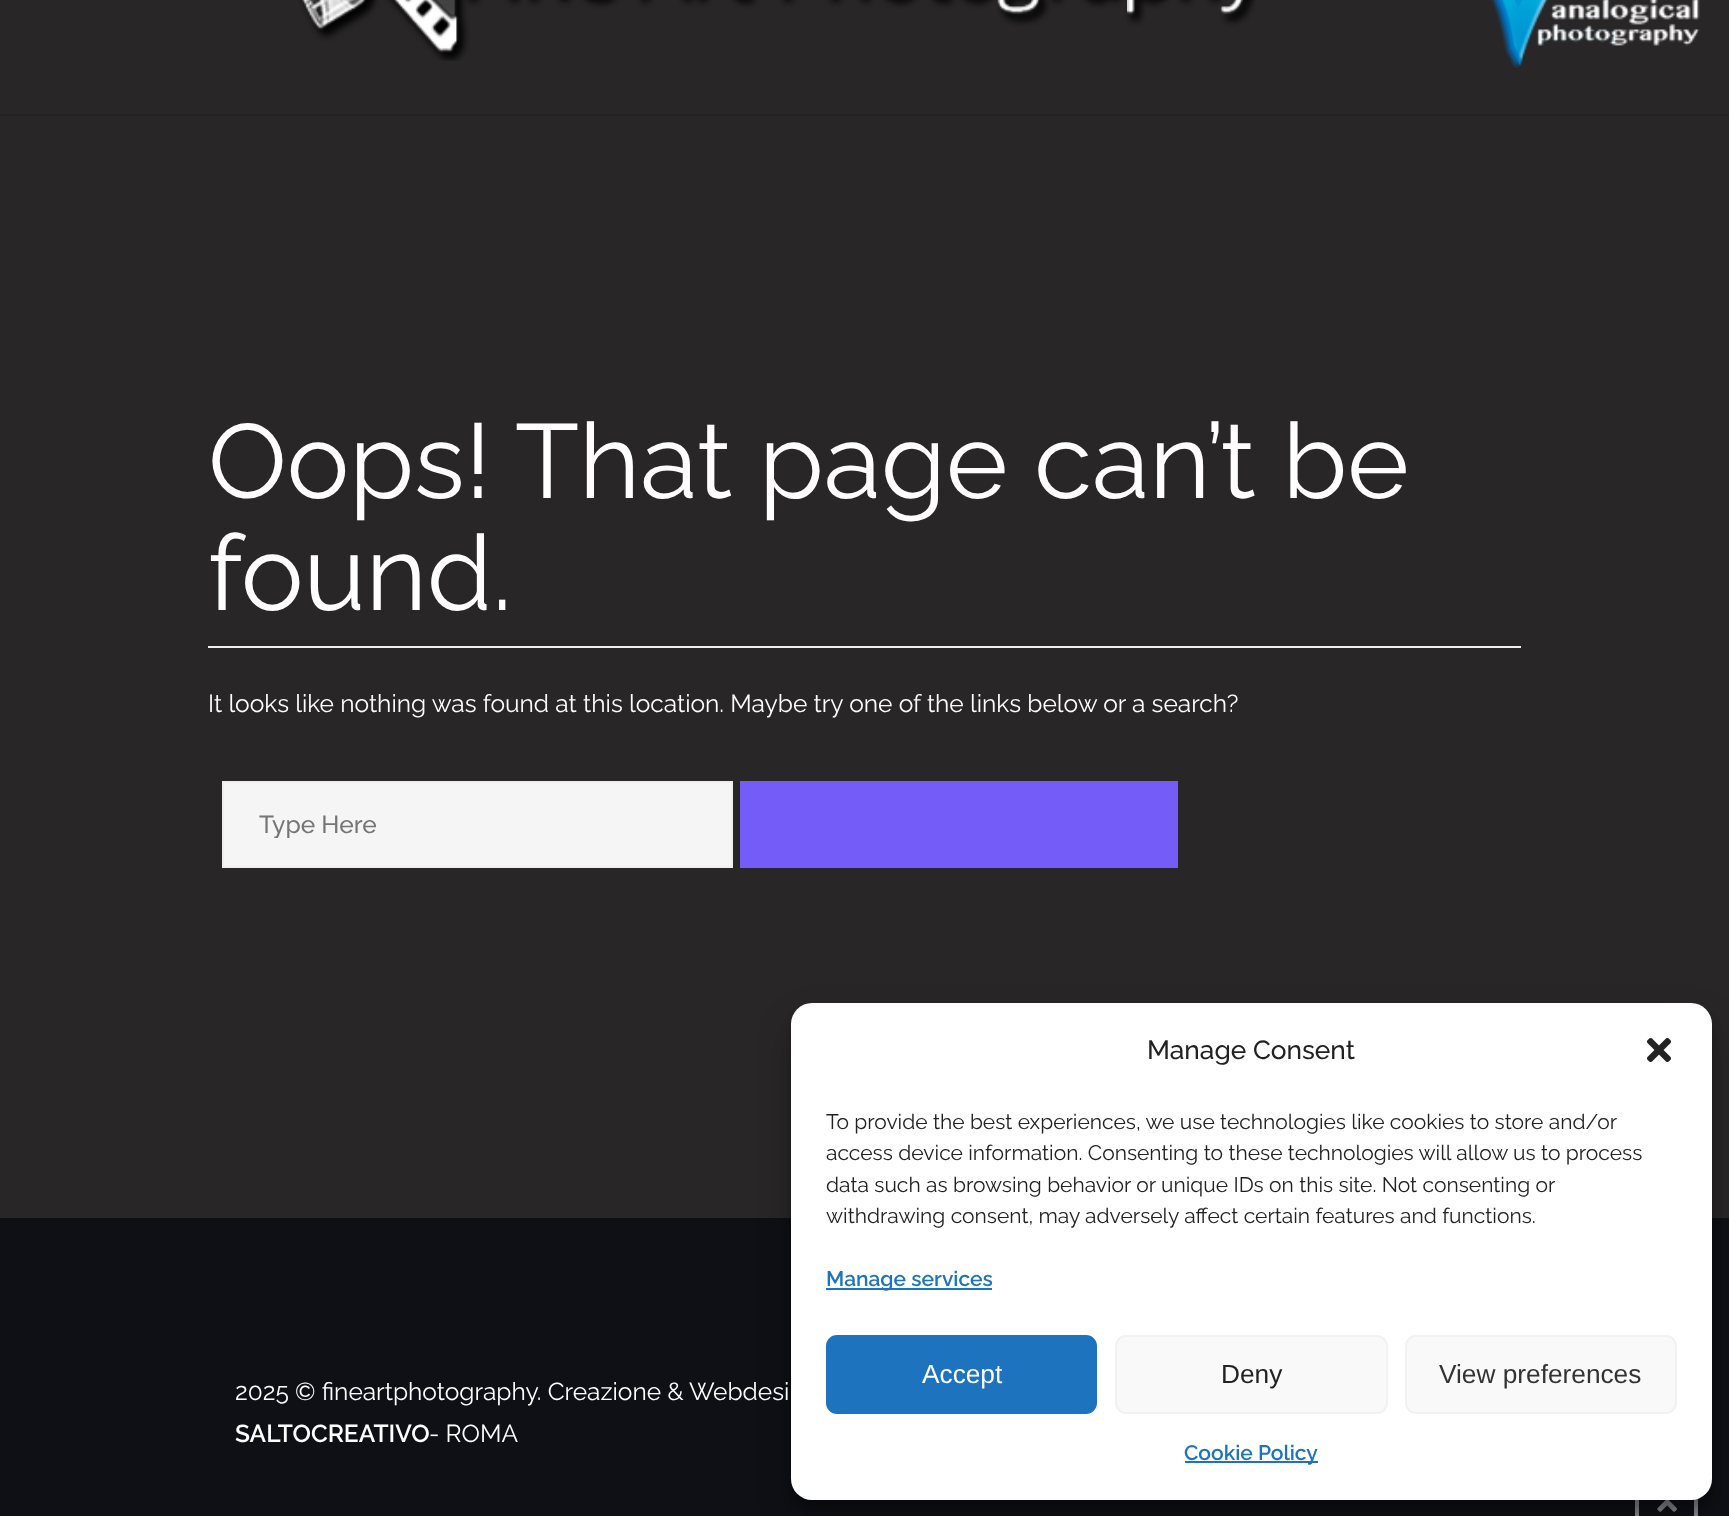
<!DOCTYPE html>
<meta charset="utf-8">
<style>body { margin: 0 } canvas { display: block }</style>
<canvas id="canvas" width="1729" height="1516"></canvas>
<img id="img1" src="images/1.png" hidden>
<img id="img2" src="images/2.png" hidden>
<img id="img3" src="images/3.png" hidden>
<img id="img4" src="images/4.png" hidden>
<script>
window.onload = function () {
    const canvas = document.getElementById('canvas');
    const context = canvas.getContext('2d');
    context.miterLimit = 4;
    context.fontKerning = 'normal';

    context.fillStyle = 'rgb(40, 38, 38)';
    context.fillRect(0, 0, 1729, 1516);
    context.fillStyle = 'rgb(36, 34, 34)';
    context.fillRect(0, 114, 1729, 2);
    context.drawImage(document.getElementById('img1'), 299, 0, 957, 61);
    context.drawImage(document.getElementById('img2'), 1491, 0, 209, 68);
    context.fillStyle = 'rgb(238, 238, 238)';
    context.fillRect(208, 646, 1313, 2);
    context.fillStyle = 'rgb(245, 245, 245)';
    context.beginPath();
    context.rect(223, 782, 509, 85);
    context.fill();
    context.strokeStyle = 'rgb(238, 238, 238)';
    context.lineWidth = 2;
    context.stroke();
    context.fillStyle = 'rgb(116, 92, 249)';
    context.fillRect(740, 781, 438, 87);
    context.fillStyle = 'rgb(14, 16, 21)';
    context.fillRect(0, 1218, 1729, 298);
    context.strokeStyle = 'rgb(135, 136, 138)';
    context.lineWidth = 4;
    context.strokeRect(1637, 1477, 59, 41);
    context.drawImage(document.getElementById('img3'), 1657, 1500, 20, 12);
    context.fillStyle = 'rgba(0, 0, 0, 0.23)';
    context.filter = 'blur(5px)';
    context.beginPath();
    context.roundRect(791, 1013, 921, 497, 21);
    context.fill();
    context.filter = 'none';
    context.fillStyle = 'rgba(0, 0, 0, 0.19)';
    context.filter = 'blur(17.5px)';
    context.beginPath();
    context.roundRect(791, 1020, 921, 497, 21);
    context.fill();
    context.filter = 'none';
    context.fillStyle = 'rgb(255, 255, 255)';
    context.beginPath();
    context.roundRect(791, 1003, 921, 497, 21);
    context.fill();
    context.drawImage(document.getElementById('img4'), 1647, 1038, 24, 24);
    context.fillStyle = 'rgb(30, 115, 190)';
    context.fillRect(826, 1288, 166, 2);
    context.beginPath();
    context.roundRect(827, 1336, 269, 77, 10);
    context.fill();
    context.strokeStyle = 'rgb(30, 115, 190)';
    context.lineWidth = 2;
    context.stroke();
    context.fillStyle = 'rgb(249, 249, 249)';
    context.beginPath();
    context.roundRect(1116, 1336, 271, 77, 10);
    context.fill();
    context.strokeStyle = 'rgb(242, 242, 242)';
    context.stroke();
    context.beginPath();
    context.roundRect(1406, 1336, 270, 77, 10);
    context.fill();
    context.stroke();
    context.fillStyle = 'rgb(30, 115, 190)';
    context.fillRect(1185, 1461, 133, 2);
    context.font = '105px Raleway';
    context.fillStyle = 'rgb(255, 255, 255)';
    context.fillText('Oops! That page can’t be', 208, 498);
    context.fillText('found.', 208, 610);
    context.font = '24.5px Raleway';
    context.fillText('It looks like nothing was found at this location. Maybe try one of the links below or a search?', 208, 712);
    context.save();
    context.beginPath();
    context.rect(259, 810, 467, 28);
    context.clip();
    context.font = '500 24.5px Raleway';
    context.fillStyle = 'rgb(117, 117, 117)';
    context.fillText('Type Here', 259, 833);
    context.restore();
    context.fillText('2025 © fineartphotography. Creazione & Webdesi', 235, 1400);
    context.font = '600 24.5px Raleway';
    context.fillText('SALTOCREATIVO', 235, 1442);
    context.font = '24.5px Raleway';
    context.fillText('- ROMA', 429, 1442);
    context.font = '500 26.25px Raleway';
    context.fillStyle = 'rgb(34, 34, 34)';
    context.fillText('Manage Consent', 1147, 1059);
    context.font = '21px Raleway';
    context.fillText('To provide the best experiences, we use technologies like cookies to store and/or', 826, 1129);
    context.fillText('access device information. Consenting to these technologies will allow us to process', 826, 1160);
    context.fillText('data such as browsing behavior or unique IDs on this site. Not consenting or', 826, 1192);
    context.fillText('withdrawing consent, may adversely affect certain features and functions.', 826, 1223);
    context.font = '600 21px Raleway';
    context.fillStyle = 'rgb(30, 115, 190)';
    context.fillText('Manage services', 826, 1286);
    context.font = '26.25px Liberation Sans';
    context.fillStyle = 'rgb(255, 255, 255)';
    context.fillText('Accept', 922, 1383);
    context.fillStyle = 'rgb(34, 34, 34)';
    context.fillText('Deny', 1221, 1383);
    context.fillStyle = 'rgb(51, 51, 51)';
    context.fillText('View preferences', 1439, 1383);
    context.font = '600 21px Raleway';
    context.fillStyle = 'rgb(30, 115, 190)';
    context.fillText('Cookie Policy', 1184, 1460);
};
</script>
